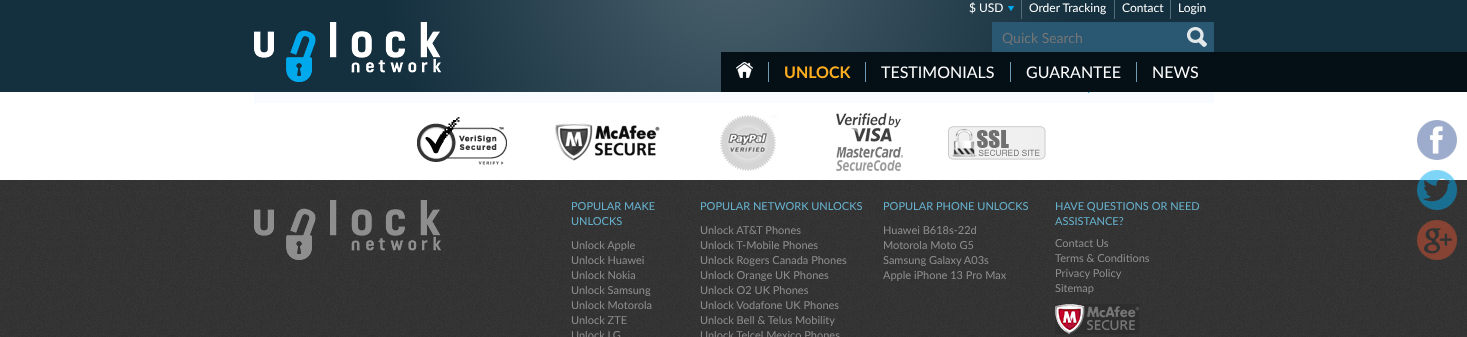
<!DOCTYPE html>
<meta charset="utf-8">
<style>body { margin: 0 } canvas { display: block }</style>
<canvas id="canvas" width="1467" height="337"></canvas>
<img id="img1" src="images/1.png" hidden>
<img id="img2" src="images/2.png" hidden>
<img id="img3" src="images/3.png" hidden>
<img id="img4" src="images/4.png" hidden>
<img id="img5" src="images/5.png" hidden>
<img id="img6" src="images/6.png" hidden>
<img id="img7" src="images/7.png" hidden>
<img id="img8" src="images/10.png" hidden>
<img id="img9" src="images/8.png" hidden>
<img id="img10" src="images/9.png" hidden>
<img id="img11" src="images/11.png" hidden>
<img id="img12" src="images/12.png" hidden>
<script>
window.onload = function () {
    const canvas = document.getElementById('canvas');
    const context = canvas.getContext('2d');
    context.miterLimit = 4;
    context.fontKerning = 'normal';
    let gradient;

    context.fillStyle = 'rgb(255, 255, 255)';
    context.fillRect(0, 0, 1467, 337);
    gradient = context.createRadialGradient(734, -46, 0, 734, -46, 354);
    gradient.addColorStop(0.02, 'rgb(75, 97, 109)');
    gradient.addColorStop(1, 'rgb(20, 47, 62)');
    context.fillStyle = gradient;
    context.fillRect(0, 0, 1467, 92);
    context.drawImage(document.getElementById('img1'), 254, 22, 187, 60);
    context.drawImage(document.getElementById('img2'), 1008, 6, 6, 5);
    context.fillStyle = 'rgb(85, 108, 121)';
    context.fillRect(1021, 0, 1, 19);
    context.fillRect(1114, 0, 1, 19);
    context.fillRect(1170, 0, 1, 19);
    context.fillStyle = 'rgb(42, 88, 114)';
    context.fillRect(992, 22, 222, 30);
    context.drawImage(document.getElementById('img3'), 1187, 27, 20, 20);
    context.fillStyle = 'rgb(4, 15, 22)';
    context.fillRect(721, 52, 746, 40);
    context.drawImage(document.getElementById('img4'), 736, 62, 17, 16);
    context.fillStyle = 'rgb(111, 154, 179)';
    context.fillRect(768, 62, 1, 20);
    context.fillRect(865, 62, 1, 20);
    context.fillRect(1010, 62, 1, 20);
    context.fillRect(1136, 62, 1, 20);
    context.fillStyle = 'rgb(248, 251, 255)';
    context.fillRect(254, 92, 960, 11);
    context.drawImage(document.getElementById('img5'), 1087, 92, 3, 1);
    context.drawImage(document.getElementById('img6'), 417, 113, 629, 58);
    context.drawImage(document.getElementById('img7'), 1417, 120, 40, 40);
    context.drawImage(document.getElementById('img8'), 0, 180, 1467, 157);
    context.drawImage(document.getElementById('img9'), 1417, 170, 40, 40);
    context.drawImage(document.getElementById('img10'), 1417, 220, 40, 40);
    context.drawImage(document.getElementById('img11'), 254, 200, 187, 60);
    context.drawImage(document.getElementById('img12'), 1055, 304, 84, 30);
    context.font = '12px Lato';
    context.fillStyle = 'rgb(255, 255, 255)';
    context.fillText('$ USD', 969, 12);
    context.fillText('Order Tracking', 1029, 12);
    context.fillText('Contact', 1122, 12);
    context.fillText('Login', 1178, 12);
    context.font = '14px Lato';
    context.fillStyle = 'rgb(117, 117, 117)';
    context.fillText('Quick Search', 1002, 43);
    context.font = 'bold 16px Lato';
    context.fillStyle = 'rgb(255, 174, 31)';
    context.fillText('UNLOCK', 784, 78);
    context.font = '16px Lato';
    context.fillStyle = 'rgb(255, 255, 255)';
    context.fillText('TESTIMONIALS', 881, 78);
    context.fillText('GUARANTEE', 1026, 78);
    context.fillText('NEWS', 1152, 78);
    context.font = '11px Lato';
    context.fillStyle = 'rgb(103, 178, 207)';
    context.fillText('POPULAR MAKE', 571, 210);
    context.fillText('UNLOCKS', 571, 225);
    context.fillStyle = 'rgb(142, 142, 142)';
    context.fillText('Unlock Apple', 571, 249);
    context.fillText('Unlock Huawei', 571, 264);
    context.fillText('Unlock Nokia', 571, 279);
    context.fillText('Unlock Samsung', 571, 294);
    context.fillText('Unlock Motorola', 571, 309);
    context.fillText('Unlock ZTE', 571, 324);
    context.fillText('Unlock LG', 571, 339);
    context.fillStyle = 'rgb(103, 178, 207)';
    context.fillText('POPULAR NETWORK UNLOCKS', 700, 210);
    context.fillStyle = 'rgb(142, 142, 142)';
    context.fillText('Unlock AT&T Phones', 700, 234);
    context.fillText('Unlock T-Mobile Phones', 700, 249);
    context.fillText('Unlock Rogers Canada Phones', 700, 264);
    context.fillText('Unlock Orange UK Phones', 700, 279);
    context.fillText('Unlock O2 UK Phones', 700, 294);
    context.fillText('Unlock Vodafone UK Phones', 700, 309);
    context.fillText('Unlock Bell & Telus Mobility', 700, 324);
    context.fillText('Unlock Telcel Mexico Phones', 700, 339);
    context.fillStyle = 'rgb(103, 178, 207)';
    context.fillText('POPULAR PHONE UNLOCKS', 883, 210);
    context.fillStyle = 'rgb(142, 142, 142)';
    context.fillText('Huawei B618s-22d', 883, 234);
    context.fillText('Motorola Moto G5', 883, 249);
    context.fillText('Samsung Galaxy A03s', 883, 264);
    context.fillText('Apple iPhone 13 Pro Max', 883, 279);
    context.fillStyle = 'rgb(103, 178, 207)';
    context.fillText('HAVE QUESTIONS OR NEED', 1055, 210);
    context.fillText('ASSISTANCE?', 1055, 225);
    context.fillStyle = 'rgb(142, 142, 142)';
    context.fillText('Contact Us', 1055, 247);
    context.fillText('Terms & Conditions', 1055, 262);
    context.fillText('Privacy Policy', 1055, 277);
    context.fillText('Sitemap', 1055, 292);
};
</script>
